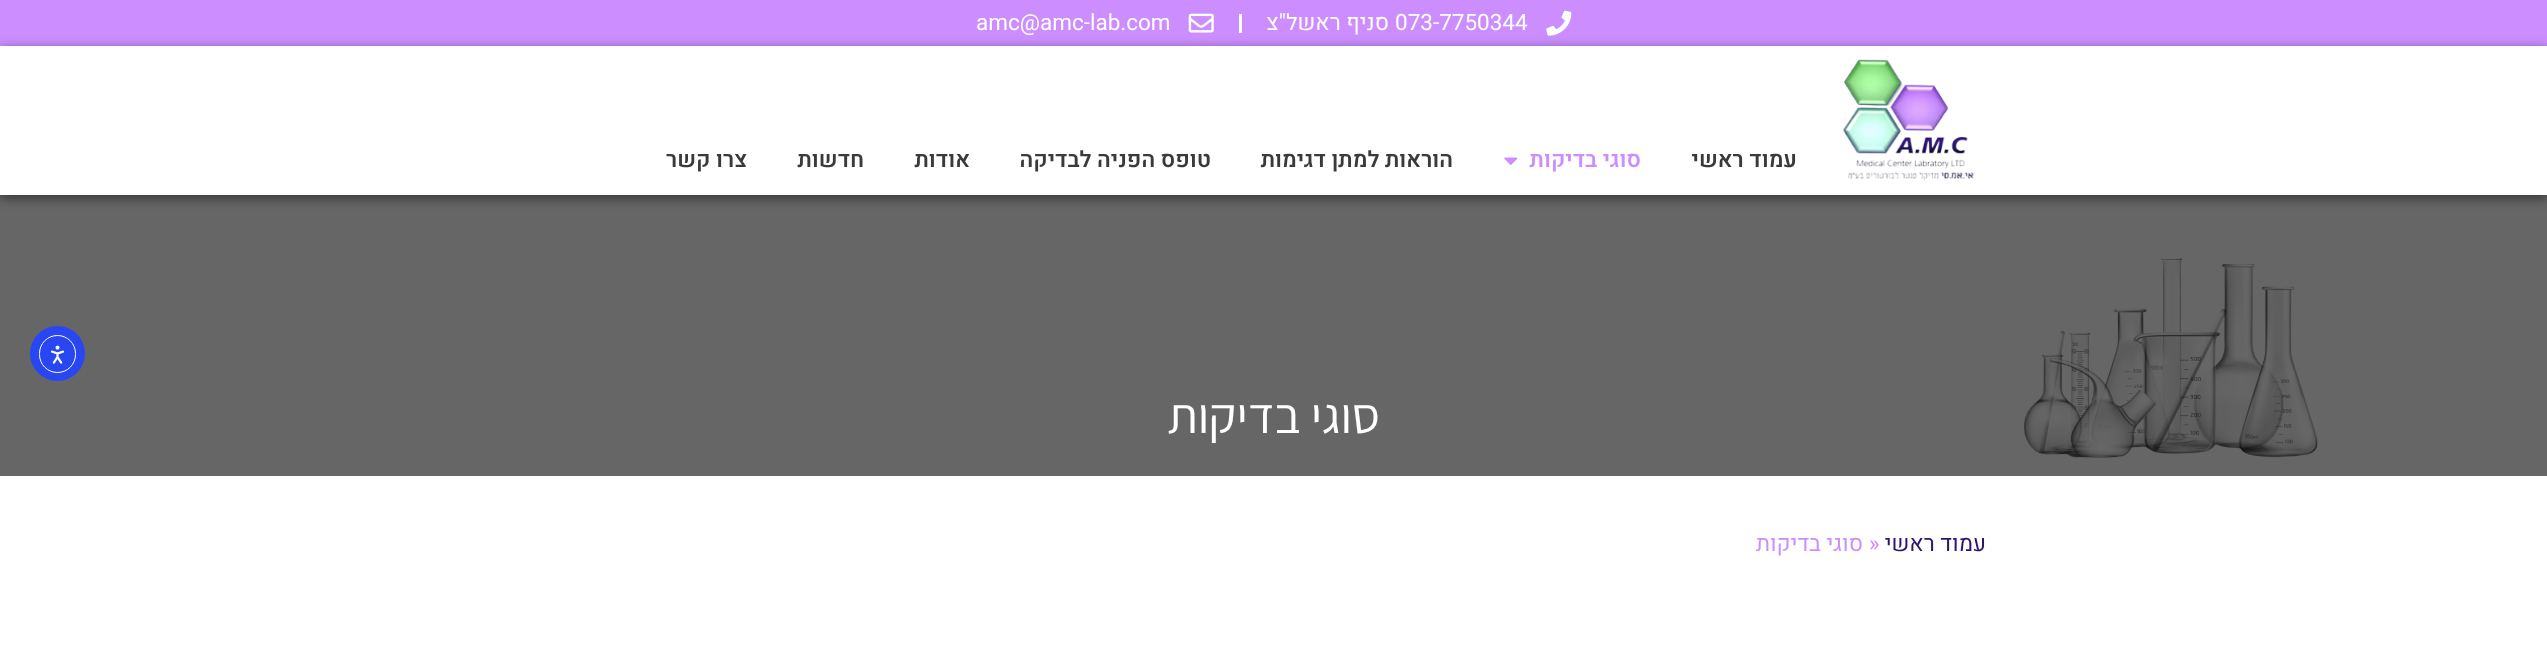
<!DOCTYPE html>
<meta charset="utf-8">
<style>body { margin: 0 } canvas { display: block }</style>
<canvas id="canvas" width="2547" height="652"></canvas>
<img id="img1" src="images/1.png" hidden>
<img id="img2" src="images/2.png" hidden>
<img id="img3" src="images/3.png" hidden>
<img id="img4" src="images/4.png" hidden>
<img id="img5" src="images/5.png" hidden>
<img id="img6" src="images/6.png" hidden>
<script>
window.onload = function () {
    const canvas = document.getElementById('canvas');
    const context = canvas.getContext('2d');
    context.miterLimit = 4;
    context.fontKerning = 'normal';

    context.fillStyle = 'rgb(255, 255, 255)';
    context.fillRect(0, 0, 2547, 652);
    context.fillStyle = 'rgb(102, 102, 102)';
    context.fillRect(0, 195, 2547, 281);
    context.fillStyle = 'rgb(204, 142, 255)';
    context.fillRect(0, 0, 2547, 46);
    context.drawImage(document.getElementById('img1'), 1546, 10, 26, 26);
    context.fillStyle = 'rgb(255, 255, 255)';
    context.fillRect(1239, 14, 3, 19);
    context.drawImage(document.getElementById('img2'), 1188, 13, 26, 20);
    context.save();
    context.beginPath();
    context.moveTo(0, 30);
    context.lineTo(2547, 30);
    context.lineTo(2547, 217);
    context.lineTo(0, 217);
    context.closePath();
    context.moveTo(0, 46);
    context.lineTo(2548, 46);
    context.lineTo(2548, 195);
    context.lineTo(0, 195);
    context.closePath();
    context.clip('evenodd');
    context.fillStyle = 'rgba(0, 0, 0, 0.5)';
    context.filter = 'blur(6px)';
    context.beginPath();
    context.rect(0, 49, 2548, 149);
    context.fill();
    context.filter = 'none';
    context.restore();
    context.drawImage(document.getElementById('img3'), 1843, 59, 131, 121);
    context.drawImage(document.getElementById('img4'), 1504, 157, 14, 8);
    context.fillStyle = 'rgb(40, 71, 243)';
    context.beginPath();
    context.arc(57.5, 353.5, 27.5, 0, 2 * Math.PI);
    context.fill();
    context.beginPath();
    context.roundRect(39.5, 335.5, 36, 37, 18);
    context.strokeStyle = 'rgb(255, 255, 255)';
    context.stroke();
    context.drawImage(document.getElementById('img5'), 50, 345, 14, 19);
    context.drawImage(document.getElementById('img6'), 2023, 258, 295, 200);
    context.font = '22.5px Heebo';
    context.fillStyle = 'rgb(255, 255, 255)';
    context.fillText('073-7750344', 1395, 30);
    context.direction = 'rtl';
    context.fillText('סניף ראשל"צ', 1389, 30);
    context.direction = 'ltr';
    context.fillText('amc@amc-lab.com', 976, 30);
    context.direction = 'rtl';
    context.font = '600 22.5px Heebo';
    context.fillStyle = 'rgb(58, 58, 58)';
    context.fillText('עמוד ראשי', 1797, 167);
    context.fillStyle = 'rgb(204, 142, 255)';
    context.fillText('סוגי בדיקות', 1641, 167);
    context.fillStyle = 'rgb(58, 58, 58)';
    context.fillText('הוראות למתן דגימות', 1453, 167);
    context.fillText('טופס הפניה לבדיקה', 1211, 167);
    context.fillText('אודות', 970, 167);
    context.fillText('חדשות', 864, 167);
    context.fillText('צרו קשר', 747, 167);
    context.font = '50px Assistant';
    context.fillStyle = 'rgb(255, 255, 255)';
    context.fillText('סוגי בדיקות', 1380, 433);
    context.font = '22.5px Heebo';
    context.fillStyle = 'rgb(44, 22, 109)';
    context.fillText('עמוד ראשי', 1986, 551);
    context.direction = 'ltr';
    context.fillStyle = 'rgb(204, 142, 255)';
    context.fillText('»', 1869, 551);
    context.direction = 'rtl';
    context.fillText('סוגי בדיקות', 1863, 551);
};
</script>
